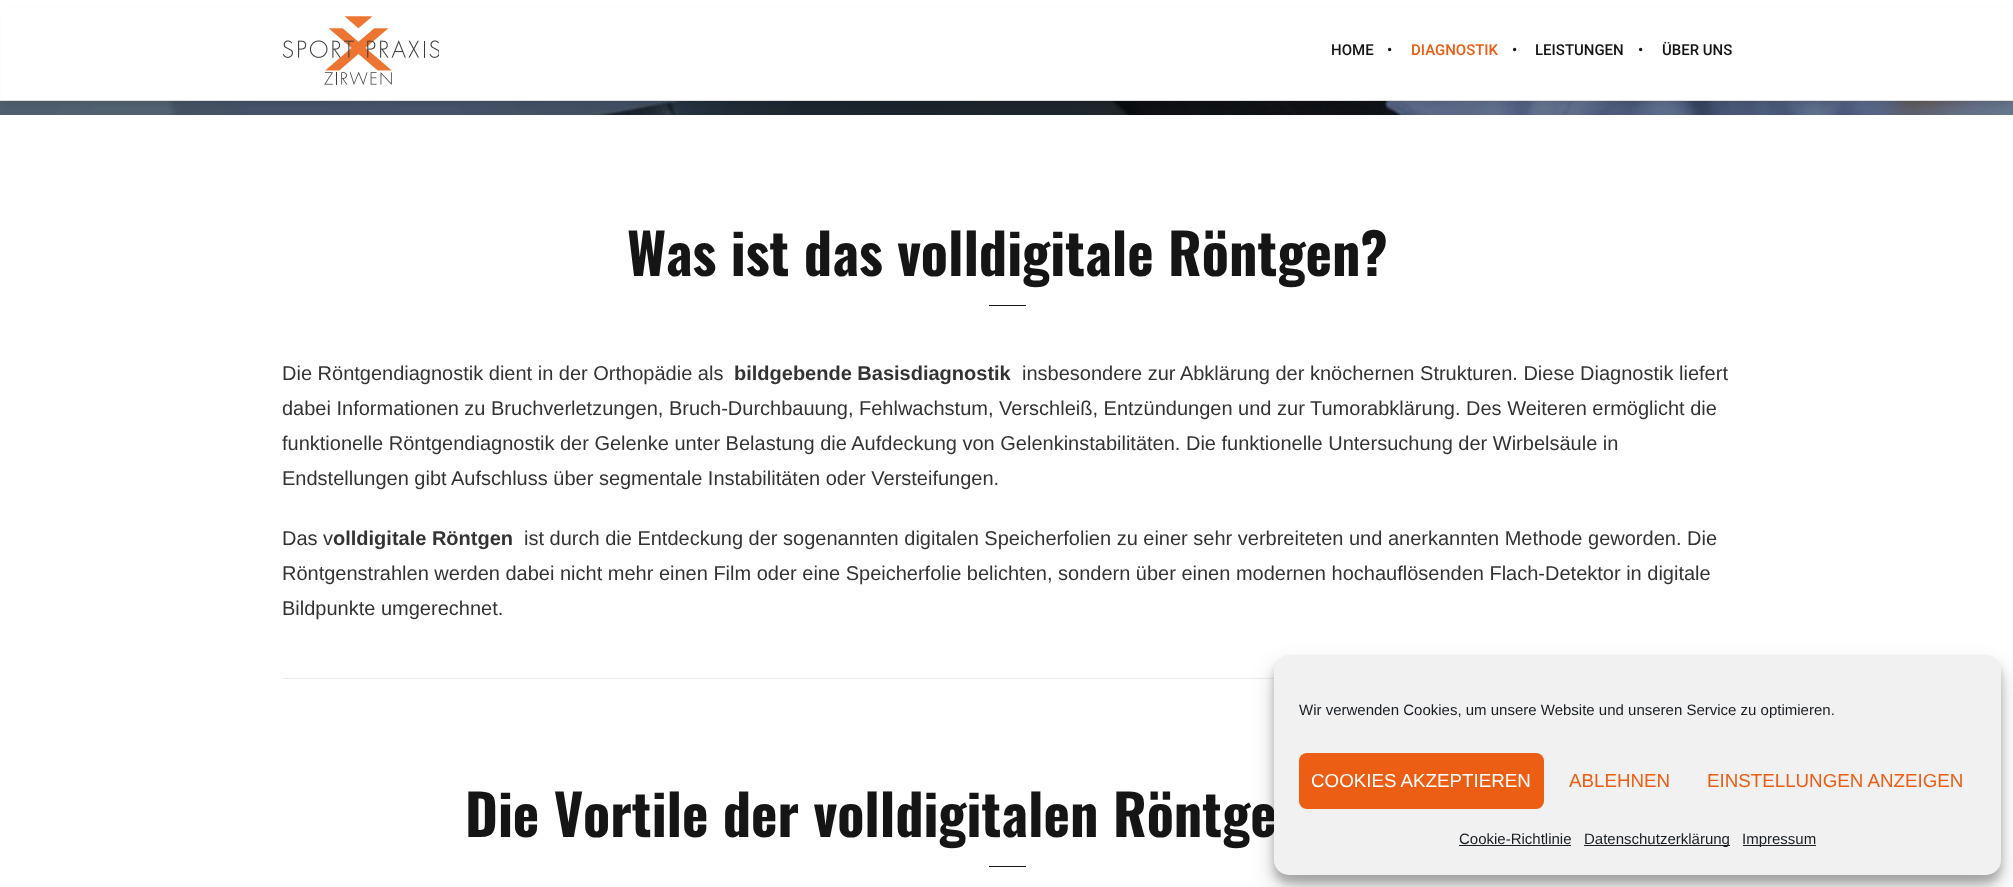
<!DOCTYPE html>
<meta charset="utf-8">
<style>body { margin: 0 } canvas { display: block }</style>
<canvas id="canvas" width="2013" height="887"></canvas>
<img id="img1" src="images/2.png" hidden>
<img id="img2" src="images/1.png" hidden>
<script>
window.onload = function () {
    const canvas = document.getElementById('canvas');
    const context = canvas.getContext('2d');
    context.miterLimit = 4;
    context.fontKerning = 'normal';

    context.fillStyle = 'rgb(255, 255, 255)';
    context.fillRect(0, 0, 2013, 887);
    context.drawImage(document.getElementById('img1'), 0, 101, 2013, 14);
    context.fillStyle = 'rgba(0, 0, 0, 0.1)';
    context.filter = 'blur(3px)';
    context.beginPath();
    context.rect(5, 11, 2004, 92);
    context.fill();
    context.filter = 'none';
    context.fillStyle = 'rgb(255, 255, 255)';
    context.fillRect(1, 7, 2012, 93);
    context.fillStyle = 'rgb(221, 221, 221)';
    context.fillRect(0, 100, 2013, 1);
    context.drawImage(document.getElementById('img2'), 283, 16, 156, 69);
    context.fillStyle = 'rgb(21, 21, 21)';
    context.fillRect(989, 305, 37, 1);
    context.fillStyle = 'rgb(235, 235, 235)';
    context.fillRect(283, 678, 991, 1);
    context.fillStyle = 'rgb(21, 21, 21)';
    context.fillRect(989, 866, 37, 1);
    context.fillStyle = 'rgba(0, 0, 0, 0.23)';
    context.filter = 'blur(4px)';
    context.beginPath();
    context.roundRect(1274, 663, 727, 220, 15);
    context.fill();
    context.filter = 'none';
    context.fillStyle = 'rgba(0, 0, 0, 0.19)';
    context.filter = 'blur(12.5px)';
    context.beginPath();
    context.roundRect(1274, 668, 727, 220, 15);
    context.fill();
    context.filter = 'none';
    context.font = '500 15px Roboto';
    context.fillStyle = 'rgb(21, 21, 21)';
    context.fillText('HOME', 1331, 55);
    context.fillText('•', 1387, 55);
    context.fillStyle = 'rgb(235, 94, 19)';
    context.fillText('DIAGNOSTIK', 1411, 55);
    context.fillStyle = 'rgb(21, 21, 21)';
    context.fillText('•', 1512, 55);
    context.fillText('LEISTUNGEN', 1535, 55);
    context.fillText('•', 1638, 55);
    context.fillText('ÜBER UNS', 1662, 55);
    context.font = 'bold 56.25px Oswald';
    context.fillText('Was ist das volldigitale Röntgen?', 627, 276);
    context.font = '20px Liberation Sans';
    context.fillStyle = 'rgb(51, 51, 51)';
    context.fillText('Die Röntgendiagnostik dient in der Orthopädie als', 282, 380);
    context.font = 'bold 20px Liberation Sans';
    context.fillText('bildgebende Basisdiagnostik', 734, 380);
    context.font = '20px Liberation Sans';
    context.fillText('insbesondere zur Abklärung der knöchernen Strukturen. Diese Diagnostik liefert', 1022, 380);
    context.fillText('dabei Informationen zu Bruchverletzungen, Bruch-Durchbauung, Fehlwachstum, Verschleiß, Entzündungen und zur Tumorabklärung. Des Weiteren ermöglicht die', 282, 415);
    context.fillText('funktionelle Röntgendiagnostik der Gelenke unter Belastung die Aufdeckung von Gelenkinstabilitäten. Die funktionelle Untersuchung der Wirbelsäule in', 282, 450);
    context.fillText('Endstellungen gibt Aufschluss über segmentale Instabilitäten oder Versteifungen.', 282, 485);
    context.fillText('Das v', 282, 545);
    context.font = 'bold 20px Liberation Sans';
    context.fillText('olldigitale Röntgen', 333, 545);
    context.font = '20px Liberation Sans';
    context.fillText('ist durch die Entdeckung der sogenannten digitalen Speicherfolien zu einer sehr verbreiteten und anerkannten Methode geworden. Die', 524, 545);
    context.fillText('Röntgenstrahlen werden dabei nicht mehr einen Film oder eine Speicherfolie belichten, sondern über einen modernen hochauflösenden Flach-Detektor in digitale', 282, 580);
    context.fillText('Bildpunkte umgerechnet.', 282, 615);
    context.font = 'bold 56.25px Oswald';
    context.fillStyle = 'rgb(21, 21, 21)';
    context.fillText('Die Vortile der volldigitalen Röntge', 465, 837);
    context.fillStyle = 'rgb(241, 241, 241)';
    context.beginPath();
    context.roundRect(1274, 655, 727, 220, 15);
    context.fill();
    context.font = '15px Liberation Sans';
    context.fillStyle = 'rgb(25, 30, 35)';
    context.fillText('Wir verwenden Cookies, um unsere Website und unseren Service zu optimieren.', 1299, 715);
    context.fillStyle = 'rgb(235, 94, 19)';
    context.beginPath();
    context.roundRect(1299, 753, 245, 56, 8);
    context.fill();
    context.font = '18.75px Liberation Sans';
    context.fillStyle = 'rgb(255, 255, 255)';
    context.fillText('COOKIES AKZEPTIEREN', 1311, 787);
    context.fillStyle = 'rgb(235, 94, 19)';
    context.fillText('ABLEHNEN', 1569, 787);
    context.fillText('EINSTELLUNGEN ANZEIGEN', 1707, 787);
    context.font = '15px Liberation Sans';
    context.fillStyle = 'rgb(25, 30, 35)';
    context.fillText('Cookie-Richtlinie', 1459, 844);
    context.fillRect(1459, 845, 112, 1);
    context.fillRect(1584, 845, 146, 1);
    context.fillText('Datenschutzerklärung', 1584, 844);
    context.fillRect(1743, 845, 73, 1);
    context.fillText('Impressum', 1742, 844);
};
</script>
